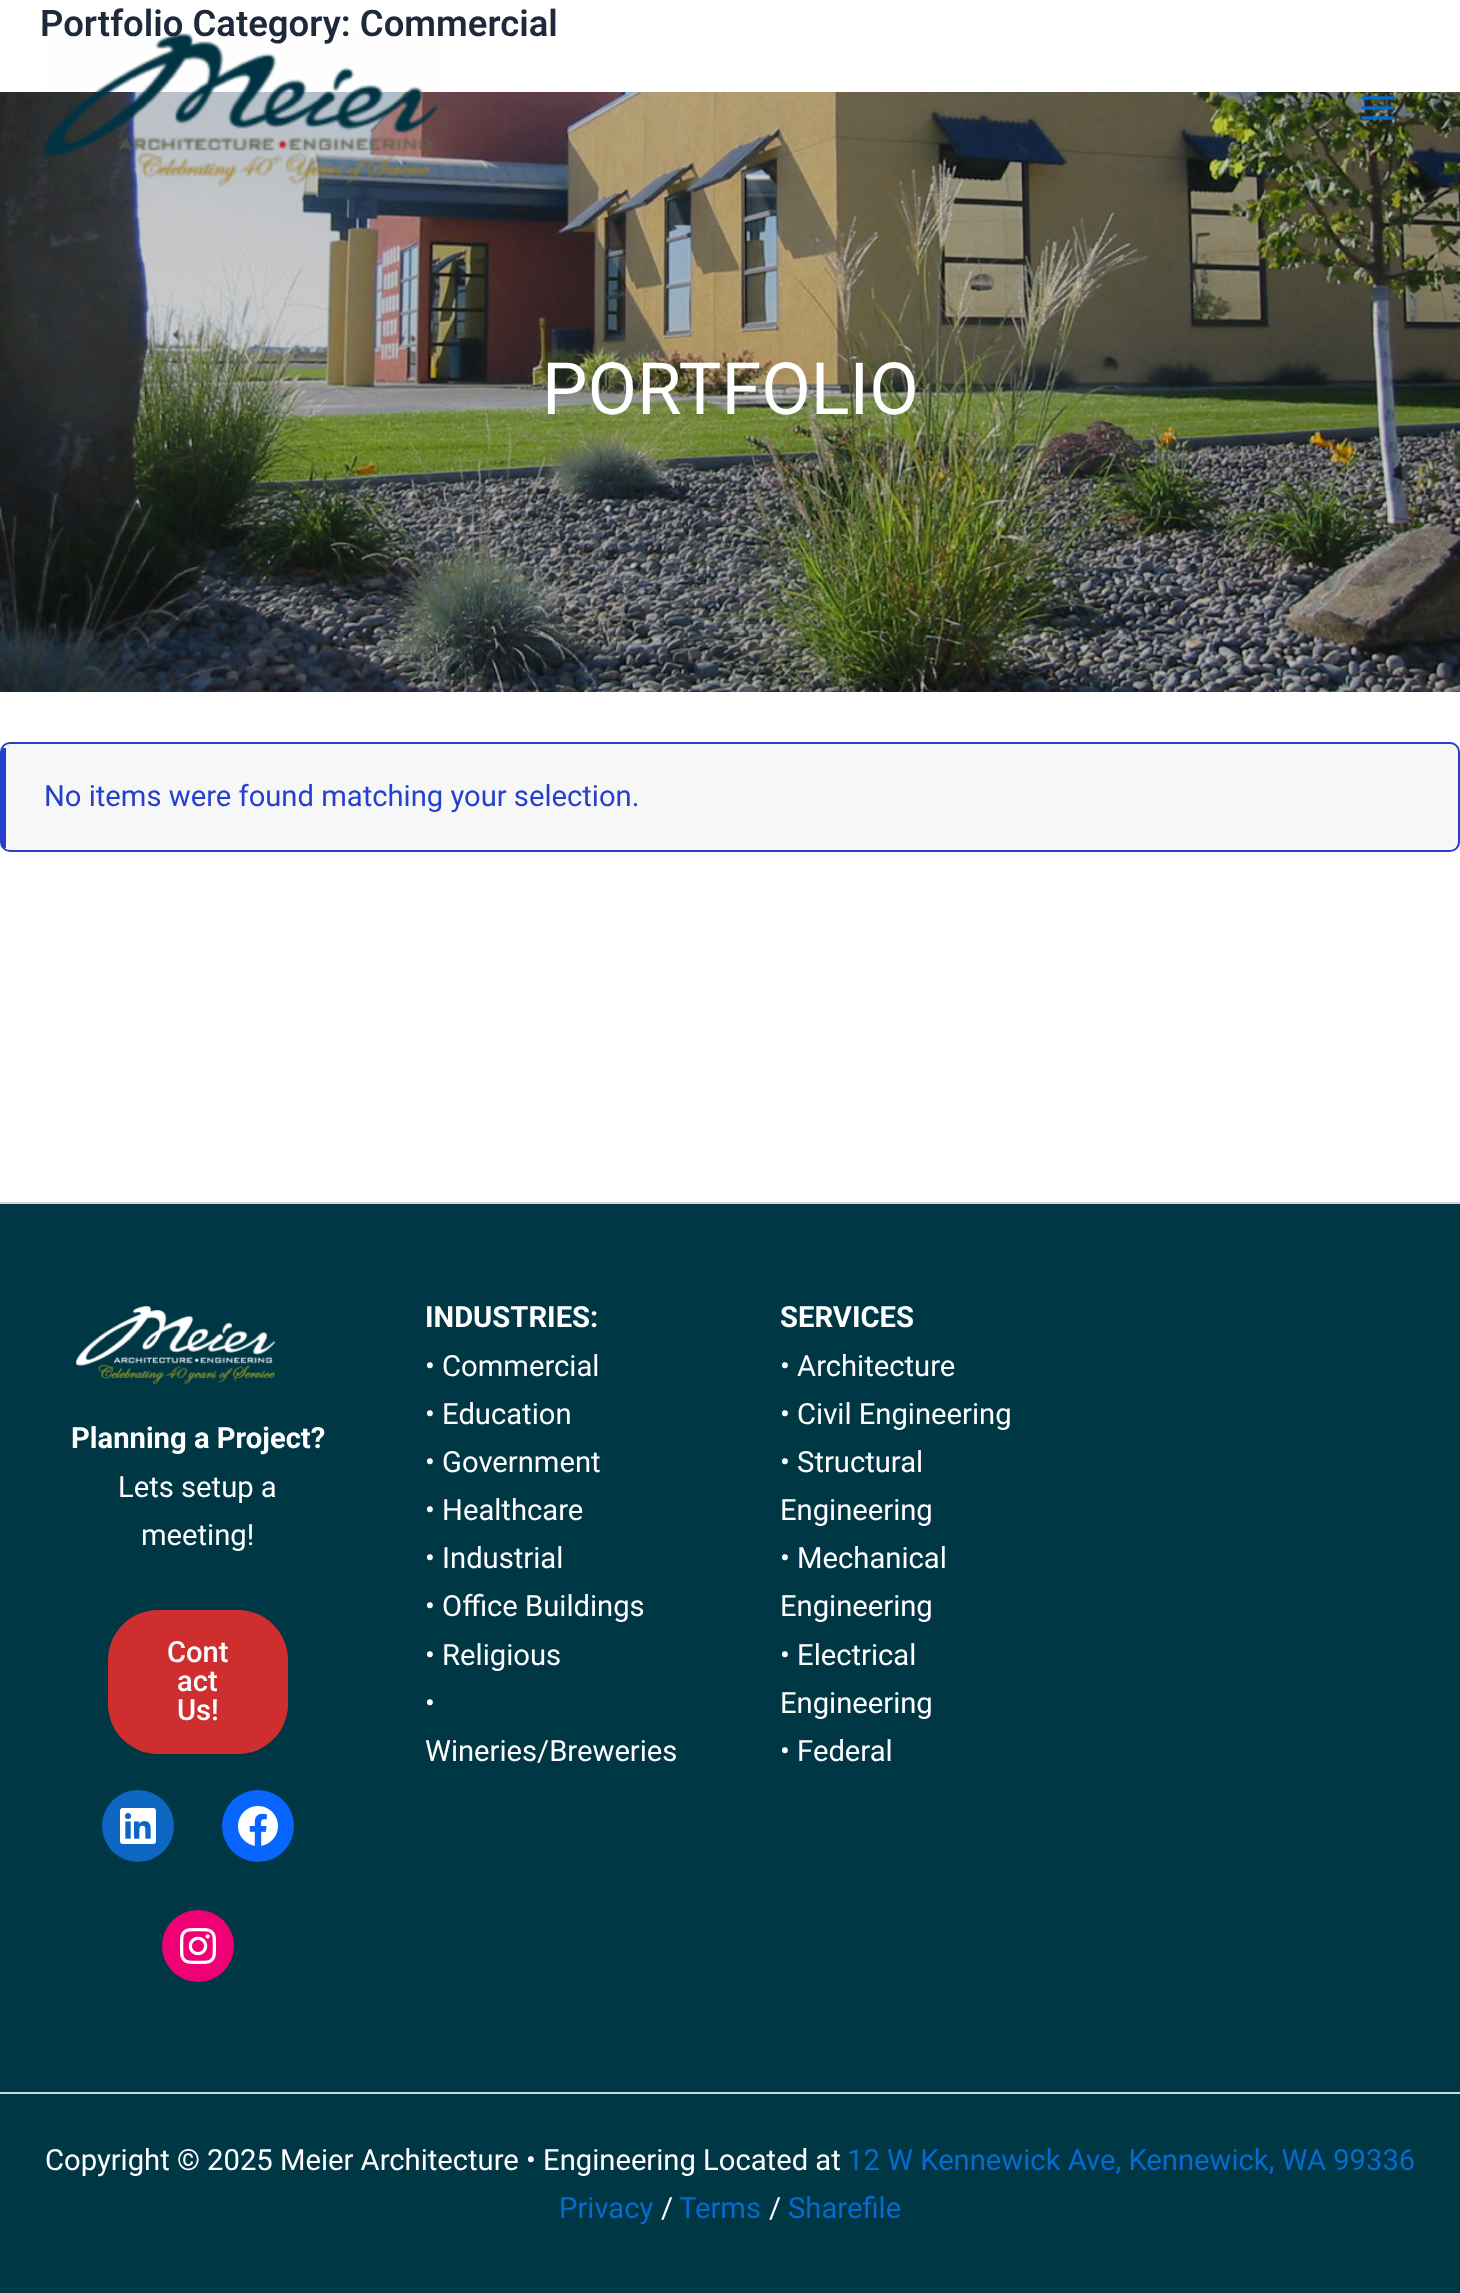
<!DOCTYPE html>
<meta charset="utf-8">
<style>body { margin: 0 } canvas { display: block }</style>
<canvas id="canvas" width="1460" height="2293"></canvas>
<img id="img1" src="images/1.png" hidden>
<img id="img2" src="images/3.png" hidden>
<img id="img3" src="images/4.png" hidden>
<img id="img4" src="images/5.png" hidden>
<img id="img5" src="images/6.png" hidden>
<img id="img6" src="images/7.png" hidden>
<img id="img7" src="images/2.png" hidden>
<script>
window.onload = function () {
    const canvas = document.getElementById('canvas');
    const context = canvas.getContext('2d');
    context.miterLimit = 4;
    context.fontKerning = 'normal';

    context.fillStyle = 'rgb(255, 255, 255)';
    context.fillRect(0, 0, 1460, 2293);
    context.drawImage(document.getElementById('img1'), 0, 92, 1460, 600);
    context.fillStyle = 'rgb(247, 247, 247)';
    context.beginPath();
    context.moveTo(10, 744);
    context.lineTo(1450, 744);
    context.bezierCurveTo(1454, 744, 1458, 748, 1458, 752);
    context.lineTo(1458, 842);
    context.bezierCurveTo(1458, 846, 1454, 850, 1450, 850);
    context.lineTo(10, 850);
    context.bezierCurveTo(8, 850, 6, 846, 6, 842);
    context.lineTo(6, 752);
    context.bezierCurveTo(6, 748, 8, 744, 10, 744);
    context.closePath();
    context.fill();
    context.beginPath();
    context.roundRect(1, 743, 1458, 108, 9);
    context.strokeStyle = 'rgb(37, 64, 204)';
    context.lineWidth = 2;
    context.stroke();
    context.fillStyle = 'rgb(37, 64, 204)';
    context.fillRect(2, 748, 4, 100);
    context.drawImage(document.getElementById('img2'), 1361, 96, 34, 24);
    context.fillStyle = 'rgb(0, 55, 69)';
    context.fillRect(0, 1204, 1460, 888);
    context.fillStyle = 'rgb(209, 213, 219)';
    context.fillRect(0, 1202, 1460, 2);
    context.drawImage(document.getElementById('img3'), 75, 1306, 200, 78);
    context.fillStyle = 'rgb(207, 46, 46)';
    context.beginPath();
    context.roundRect(108, 1610, 180, 144, 50);
    context.fill();
    context.fillStyle = 'rgb(13, 102, 194)';
    context.beginPath();
    context.arc(138, 1826, 36, 0, 2 * Math.PI);
    context.fill();
    context.drawImage(document.getElementById('img4'), 120, 1808, 36, 36);
    context.fillStyle = 'rgb(8, 102, 255)';
    context.beginPath();
    context.arc(258, 1826, 36, 0, 2 * Math.PI);
    context.fill();
    context.drawImage(document.getElementById('img5'), 238, 1806, 40, 40);
    context.fillStyle = 'rgb(240, 0, 117)';
    context.beginPath();
    context.arc(198, 1946, 36, 0, 2 * Math.PI);
    context.fill();
    context.drawImage(document.getElementById('img6'), 180, 1928, 36, 36);
    context.fillStyle = 'rgb(0, 55, 69)';
    context.fillRect(0, 2094, 1460, 199);
    context.fillStyle = 'rgb(209, 213, 219)';
    context.fillRect(0, 2092, 1460, 2);
    context.font = '600 36.5px Roboto';
    context.fillStyle = 'rgb(30, 41, 59)';
    context.fillText('Portfolio Category: Commercial', 40, 36);
    context.font = '72px Roboto';
    context.fillStyle = 'rgb(255, 255, 255)';
    context.fillText('PORTFOLIO', 542, 414);
    context.font = '29.2px Roboto';
    context.fillStyle = 'rgb(37, 64, 204)';
    context.fillText('No items were found matching your selection.', 44, 806);
    context.drawImage(document.getElementById('img7'), 43, 33, 396, 154);
    context.font = 'bold 29.2px Roboto';
    context.fillStyle = 'rgb(255, 255, 255)';
    context.fillText('Planning a Project?', 71, 1448);
    context.font = '29.2px Roboto';
    context.fillText('Lets setup a', 118, 1497);
    context.fillText('meeting!', 141, 1545);
    context.font = '500 29.2px Roboto';
    context.fillText('Cont', 167, 1662);
    context.fillText('act', 177, 1691);
    context.fillText('Us!', 177, 1720);
    context.font = 'bold 29.2px Roboto';
    context.fillText('INDUSTRIES:', 425, 1327);
    context.font = '29.2px Roboto';
    context.fillText('• Commercial', 425, 1376);
    context.fillText('• Education', 425, 1424);
    context.fillText('• Government', 425, 1472);
    context.fillText('• Healthcare', 425, 1520);
    context.fillText('• Industrial', 425, 1568);
    context.fillText('• Office Buildings', 425, 1616);
    context.fillText('• Religious', 425, 1665);
    context.fillText('•', 425, 1713);
    context.fillText('Wineries/Breweries', 425, 1761);
    context.font = 'bold 29.2px Roboto';
    context.fillText('SERVICES', 780, 1327);
    context.font = '29.2px Roboto';
    context.fillText('• Architecture', 780, 1376);
    context.fillText('• Civil Engineering', 780, 1424);
    context.fillText('• Structural', 780, 1472);
    context.fillText('Engineering', 780, 1520);
    context.fillText('• Mechanical', 780, 1568);
    context.fillText('Engineering', 780, 1616);
    context.fillText('• Electrical', 780, 1665);
    context.fillText('Engineering', 780, 1713);
    context.fillText('• Federal', 780, 1761);
    context.fillText('Copyright © 2025 Meier Architecture • Engineering Located at', 45, 2170);
    context.fillStyle = 'rgb(4, 107, 210)';
    context.fillText('12 W Kennewick Ave, Kennewick, WA 99336', 847, 2170);
    context.fillText('Privacy', 559, 2218);
    context.fillStyle = 'rgb(255, 255, 255)';
    context.fillText('/', 661, 2218);
    context.fillStyle = 'rgb(4, 107, 210)';
    context.fillText('Terms', 679, 2218);
    context.fillStyle = 'rgb(255, 255, 255)';
    context.fillText('/', 769, 2218);
    context.fillStyle = 'rgb(4, 107, 210)';
    context.fillText('Sharefile', 788, 2218);
};
</script>
